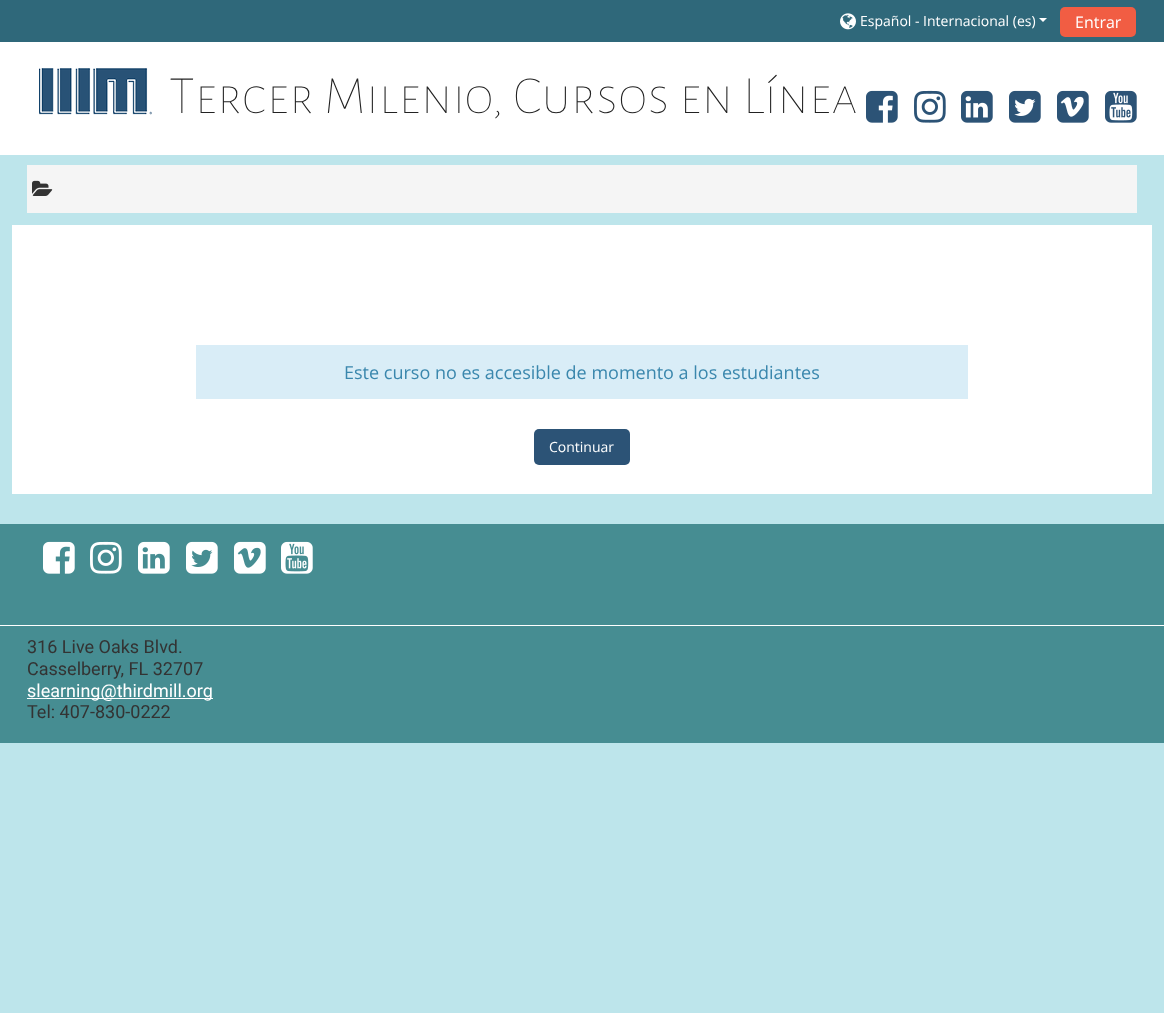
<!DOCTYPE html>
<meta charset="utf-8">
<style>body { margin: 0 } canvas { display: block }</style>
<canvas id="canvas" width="1164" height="1013"></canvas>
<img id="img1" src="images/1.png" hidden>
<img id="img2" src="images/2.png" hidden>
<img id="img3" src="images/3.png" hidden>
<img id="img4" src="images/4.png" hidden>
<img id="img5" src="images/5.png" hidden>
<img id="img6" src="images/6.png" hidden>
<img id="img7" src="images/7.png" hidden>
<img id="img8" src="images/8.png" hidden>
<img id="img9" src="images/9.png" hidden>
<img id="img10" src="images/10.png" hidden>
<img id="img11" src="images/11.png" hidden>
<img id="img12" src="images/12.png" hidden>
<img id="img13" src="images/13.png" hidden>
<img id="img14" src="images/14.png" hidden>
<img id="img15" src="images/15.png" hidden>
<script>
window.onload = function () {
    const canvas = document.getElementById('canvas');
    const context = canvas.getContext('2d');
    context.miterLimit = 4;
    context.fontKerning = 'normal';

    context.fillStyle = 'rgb(189, 229, 235)';
    context.fillRect(0, 0, 1164, 1013);
    context.fillStyle = 'rgb(255, 255, 255)';
    context.fillRect(0, 42, 1164, 113);
    context.fillStyle = 'rgb(47, 104, 122)';
    context.fillRect(0, 0, 1164, 42);
    context.drawImage(document.getElementById('img1'), 840, 13, 16, 17);
    context.fillStyle = 'rgb(255, 255, 255)';
    context.beginPath();
    context.moveTo(1039, 18);
    context.lineTo(1047, 18);
    context.lineTo(1043, 22);
    context.closePath();
    context.fill();
    context.fillStyle = 'rgb(241, 93, 67)';
    context.beginPath();
    context.roundRect(1060, 7, 76, 30, 5);
    context.fill();
    context.drawImage(document.getElementById('img2'), 39, 68, 113, 47);
    context.drawImage(document.getElementById('img3'), 866, 90, 32, 33);
    context.drawImage(document.getElementById('img4'), 914, 90, 32, 33);
    context.drawImage(document.getElementById('img5'), 961, 90, 32, 33);
    context.drawImage(document.getElementById('img6'), 1009, 90, 32, 33);
    context.drawImage(document.getElementById('img7'), 1057, 90, 32, 33);
    context.drawImage(document.getElementById('img8'), 1105, 90, 32, 33);
    context.fillStyle = 'rgb(245, 245, 245)';
    context.fillRect(27, 165, 1110, 48);
    context.drawImage(document.getElementById('img9'), 32, 180, 21, 16);
    context.fillStyle = 'rgb(255, 255, 255)';
    context.fillRect(12, 225, 1140, 269);
    context.fillStyle = 'rgb(217, 237, 247)';
    context.fillRect(196, 345, 772, 54);
    context.fillStyle = 'rgb(44, 83, 118)';
    context.beginPath();
    context.roundRect(534, 429, 96, 36, 5);
    context.fill();
    context.fillStyle = 'rgb(70, 141, 146)';
    context.fillRect(0, 524, 1164, 219);
    context.drawImage(document.getElementById('img10'), 43, 541, 32, 33);
    context.drawImage(document.getElementById('img11'), 90, 541, 32, 33);
    context.drawImage(document.getElementById('img12'), 138, 541, 32, 33);
    context.drawImage(document.getElementById('img13'), 186, 541, 32, 33);
    context.drawImage(document.getElementById('img14'), 234, 541, 32, 33);
    context.drawImage(document.getElementById('img15'), 281, 541, 32, 33);
    context.fillStyle = 'rgb(255, 255, 255)';
    context.fillRect(0, 625, 1164, 1);
    context.fillRect(27, 698, 186, 1);
    context.font = '14px Open Sans';
    context.fillText('Español - Internacional (es)', 860, 26);
    context.font = '16px Open Sans';
    context.fillText('Entrar', 1075, 28);
    context.font = '100 54px Alegreya Sans SC';
    context.fillStyle = 'rgb(34, 34, 34)';
    context.fillText('Tercer Milenio, Cursos en Línea', 169, 113);
    context.font = '18px Open Sans';
    context.fillStyle = 'rgb(58, 135, 173)';
    context.fillText('Este curso no es accesible de momento a los estudiantes', 344, 379);
    context.font = '14px Open Sans';
    context.fillStyle = 'rgb(255, 255, 255)';
    context.fillText('Continuar', 549, 452);
    context.font = '18px Roboto';
    context.fillStyle = 'rgb(51, 51, 51)';
    context.fillText('316 Live Oaks Blvd.', 27, 653);
    context.fillText('Casselberry, FL 32707', 27, 675);
    context.fillStyle = 'rgb(255, 255, 255)';
    context.fillText('slearning@thirdmill.org', 27, 697);
    context.fillStyle = 'rgb(51, 51, 51)';
    context.fillText('Tel: 407-830-0222', 27, 718);
};
</script>
